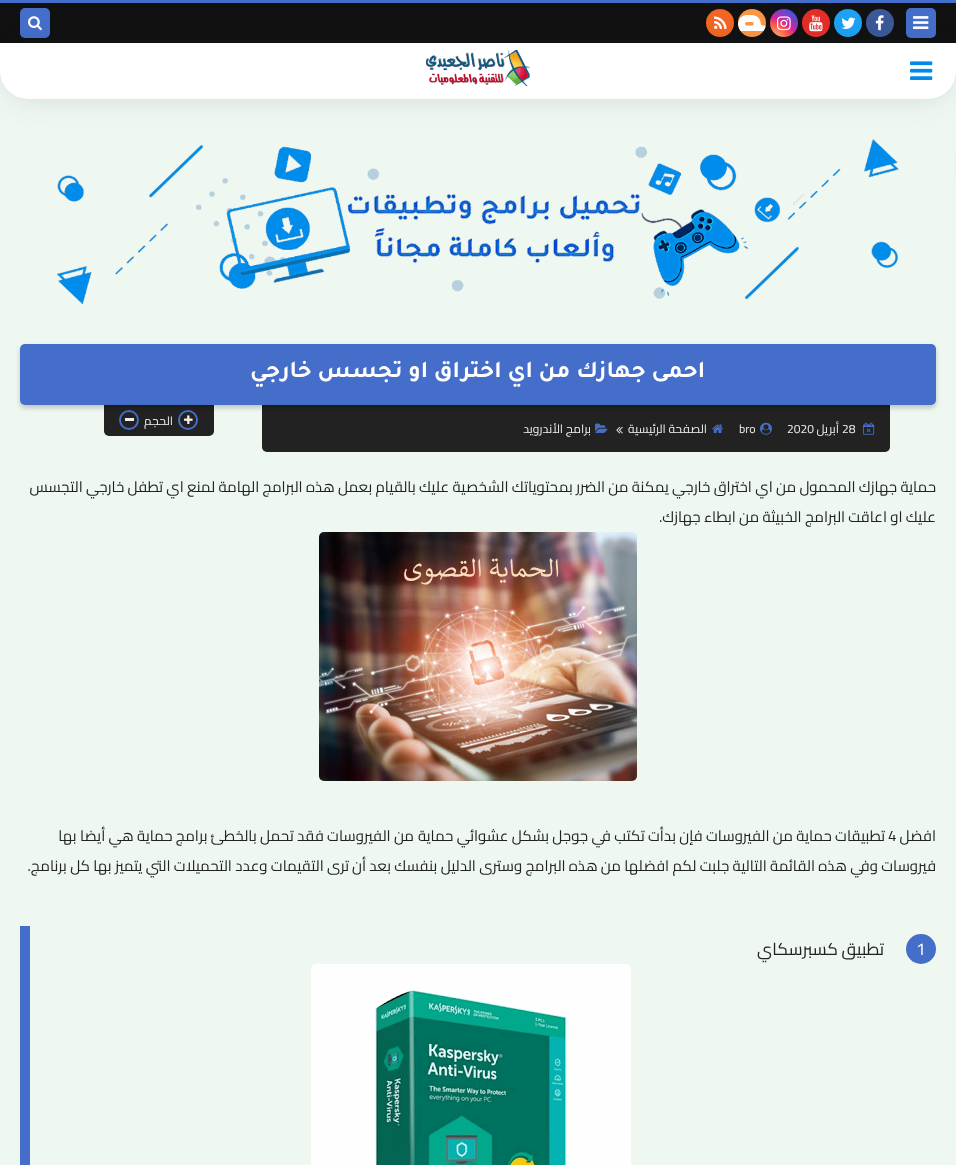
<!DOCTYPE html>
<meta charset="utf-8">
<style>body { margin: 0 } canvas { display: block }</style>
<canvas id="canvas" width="956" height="1165"></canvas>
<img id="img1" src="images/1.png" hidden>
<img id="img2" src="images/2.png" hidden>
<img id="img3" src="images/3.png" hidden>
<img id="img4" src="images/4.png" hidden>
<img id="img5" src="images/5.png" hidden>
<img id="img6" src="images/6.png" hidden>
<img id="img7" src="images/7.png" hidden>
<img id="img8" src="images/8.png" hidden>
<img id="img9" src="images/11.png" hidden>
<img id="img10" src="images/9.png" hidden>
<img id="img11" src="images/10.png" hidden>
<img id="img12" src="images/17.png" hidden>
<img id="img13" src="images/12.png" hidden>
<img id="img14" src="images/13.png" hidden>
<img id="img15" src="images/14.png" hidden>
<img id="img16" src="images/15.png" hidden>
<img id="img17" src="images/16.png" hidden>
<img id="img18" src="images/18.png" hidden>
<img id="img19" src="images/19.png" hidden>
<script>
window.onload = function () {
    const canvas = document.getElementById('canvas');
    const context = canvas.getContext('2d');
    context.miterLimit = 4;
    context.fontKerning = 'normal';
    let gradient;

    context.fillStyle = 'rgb(239, 247, 241)';
    context.fillRect(0, 0, 956, 1165);
    context.fillStyle = 'rgb(238, 238, 238)';
    context.beginPath();
    context.moveTo(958, 150);
    context.lineTo(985, 150);
    context.lineTo(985, 180);
    context.lineTo(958, 180);
    context.bezierCurveTo(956.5, 180, 955, 178.5, 955, 177);
    context.lineTo(955, 153);
    context.bezierCurveTo(955, 151.5, 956.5, 150, 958, 150);
    context.closePath();
    context.moveTo(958, 151);
    context.lineTo(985, 151);
    context.lineTo(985, 179);
    context.lineTo(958, 179);
    context.bezierCurveTo(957, 179, 956, 178, 956, 177);
    context.lineTo(956, 153);
    context.bezierCurveTo(956, 152, 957, 151, 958, 151);
    context.closePath();
    context.fill('evenodd');
    context.fillStyle = 'rgb(68, 110, 201)';
    context.fillRect(0, 0, 956, 3);
    context.fillStyle = 'rgb(17, 17, 17)';
    context.fillRect(0, 3, 956, 40);
    context.fillStyle = 'rgb(68, 110, 201)';
    context.beginPath();
    context.roundRect(906, 8, 30, 30, 5);
    context.fill();
    context.drawImage(document.getElementById('img1'), 913, 16, 16, 13);
    context.fillStyle = 'rgb(59, 89, 152)';
    context.beginPath();
    context.arc(880, 23, 14, 0, 2 * Math.PI);
    context.fill();
    context.drawImage(document.getElementById('img2'), 875, 15, 9, 16);
    context.fillStyle = 'rgb(29, 161, 242)';
    context.beginPath();
    context.arc(848, 23, 14, 0, 2 * Math.PI);
    context.fill();
    context.drawImage(document.getElementById('img3'), 841, 17, 15, 12);
    context.fillStyle = 'rgb(229, 45, 39)';
    context.beginPath();
    context.arc(816, 23, 14, 0, 2 * Math.PI);
    context.fill();
    context.drawImage(document.getElementById('img4'), 809, 15, 14, 17);
    gradient = context.createRadialGradient(770, 45, 0, 770, 45, 46);
    gradient.addColorStop(0, 'rgb(253, 244, 151)');
    gradient.addColorStop(0.05, 'rgb(253, 244, 151)');
    gradient.addColorStop(0.45, 'rgb(253, 89, 73)');
    gradient.addColorStop(0.6, 'rgb(214, 36, 159)');
    gradient.addColorStop(0.9, 'rgb(40, 90, 235)');
    context.fillStyle = gradient;
    context.beginPath();
    context.arc(784, 23, 14, 0, 2 * Math.PI);
    context.fill();
    context.drawImage(document.getElementById('img5'), 777, 16, 14, 15);
    context.fillStyle = 'rgb(252, 150, 68)';
    context.beginPath();
    context.arc(752, 23, 14, 0, 2 * Math.PI);
    context.fill();
    context.drawImage(document.getElementById('img6'), 738, 15, 28, 16);
    context.fillStyle = 'rgb(242, 101, 34)';
    context.beginPath();
    context.arc(720, 23, 14, 0, 2 * Math.PI);
    context.fill();
    context.drawImage(document.getElementById('img7'), 714, 16, 13, 13);
    context.fillStyle = 'rgb(68, 110, 201)';
    context.beginPath();
    context.roundRect(20, 8, 30, 30, 5);
    context.fill();
    context.drawImage(document.getElementById('img8'), 28, 16, 14, 15);
    context.drawImage(document.getElementById('img9'), 57, 139, 842, 165);
    context.fillStyle = 'rgba(23, 43, 61, 0.2)';
    context.filter = 'blur(16px)';
    context.beginPath();
    context.roundRect(8, 53, 940, 40, 20);
    context.fill();
    context.filter = 'none';
    context.fillStyle = 'rgb(255, 255, 255)';
    context.beginPath();
    context.roundRect(0, 43, 956, 56, [0, 0, 28, 28]);
    context.fill();
    context.drawImage(document.getElementById('img10'), 910, 61, 23, 19);
    context.drawImage(document.getElementById('img11'), 426, 50, 104, 36);
    context.fillStyle = 'rgb(34, 34, 34)';
    context.beginPath();
    context.roundRect(262, 405, 628, 47, [0, 0, 5, 5]);
    context.fill();
    context.beginPath();
    context.roundRect(104, 405, 110, 31, [0, 0, 5, 5]);
    context.fill();
    context.beginPath();
    context.arc(188, 420, 9, 0, 2 * Math.PI);
    context.strokeStyle = 'rgb(68, 110, 201)';
    context.lineWidth = 2;
    context.stroke();
    context.drawImage(document.getElementById('img12'), 184, 415, 9, 9);
    context.beginPath();
    context.arc(129, 420, 9, 0, 2 * Math.PI);
    context.stroke();
    context.fillStyle = 'rgba(0, 0, 0, 0.2)';
    context.filter = 'blur(2.5px)';
    context.beginPath();
    context.roundRect(20, 347, 916, 61, 5);
    context.fill();
    context.filter = 'none';
    context.fillStyle = 'rgb(68, 110, 201)';
    context.beginPath();
    context.roundRect(20, 344, 916, 61, 5);
    context.fill();
    context.drawImage(document.getElementById('img13'), 863, 422, 12, 13);
    context.drawImage(document.getElementById('img14'), 760, 422, 12, 13);
    context.drawImage(document.getElementById('img15'), 712, 424, 11, 9);
    context.drawImage(document.getElementById('img16'), 616, 426, 7, 8);
    context.drawImage(document.getElementById('img17'), 595, 423, 13, 10);
    context.fillStyle = 'rgb(238, 238, 238)';
    context.fillRect(125, 418, 9, 3);
    context.drawImage(document.getElementById('img18'), 319, 532, 318, 249);
    context.fillStyle = 'rgb(68, 110, 201)';
    context.beginPath();
    context.arc(921, 949, 15, 0, 2 * Math.PI);
    context.fill();
    context.fillRect(20, 926, 10, 239);
    context.drawImage(document.getElementById('img19'), 311, 964, 320, 201);
    context.direction = 'rtl';
    context.font = 'bold 24px Tajawal';
    context.fillStyle = 'rgb(255, 255, 255)';
    context.fillText('احمى جهازك من اي اختراق او تجسس خارجي', 705, 377);
    context.direction = 'ltr';
    context.font = '12px Cairo';
    context.fillStyle = 'rgb(238, 238, 238)';
    context.fillText('28', 842, 433);
    context.direction = 'rtl';
    context.fillText('أبريل', 839, 433);
    context.direction = 'ltr';
    context.fillText('2020', 787, 433);
    context.fillText('bro', 739, 433);
    context.direction = 'rtl';
    context.fillText('الصفحة الرئيسية', 707, 433);
    context.fillText('برامج الأندرويد', 591, 433);
    context.fillText('الحجم', 173, 425);
    context.font = '15px Cairo';
    context.fillStyle = 'rgb(34, 34, 34)';
    context.fillText('حماية جهازك المحمول من اي اختراق خارجي يمكنة من الضرر بمحتوياتك الشخصية عليك بالقيام بعمل هذه البرامج الهامة لمنع اي تطفل خارجي التجسس', 936, 492);
    context.fillText('عليك او اعاقت البرامج الخبيثة من ابطاء جهازك.', 936, 522);
    context.fillText('افضل', 936, 841);
    context.direction = 'ltr';
    context.fillText('4', 888, 841);
    context.direction = 'rtl';
    context.fillText('تطبيقات حماية من الفيروسات فإن بدأت تكتب في جوجل بشكل عشوائي حماية', 885, 841);
    context.fillText('من الفيروسات فقد تحمل بالخطئ برامج حماية هي أيضا بها', 414, 841);
    context.fillText('فيروسات وفي هذه', 936, 871);
    context.fillText('القائمة التالية جلبت لكم افضلها من هذه البرامج وسترى الدليل بنفسك بعد أن', 815, 871);
    context.fillText('ترى التقيمات وعدد التحميلات التي يتميز بها كل برنامج.', 349, 871);
    context.direction = 'ltr';
    context.font = '17px Cairo';
    context.fillStyle = 'rgb(255, 255, 255)';
    context.fillText('1', 916, 955);
    context.direction = 'rtl';
    context.fillStyle = 'rgb(34, 34, 34)';
    context.fillText('تطبيق كسبرسكاي', 884, 955);
};
</script>
